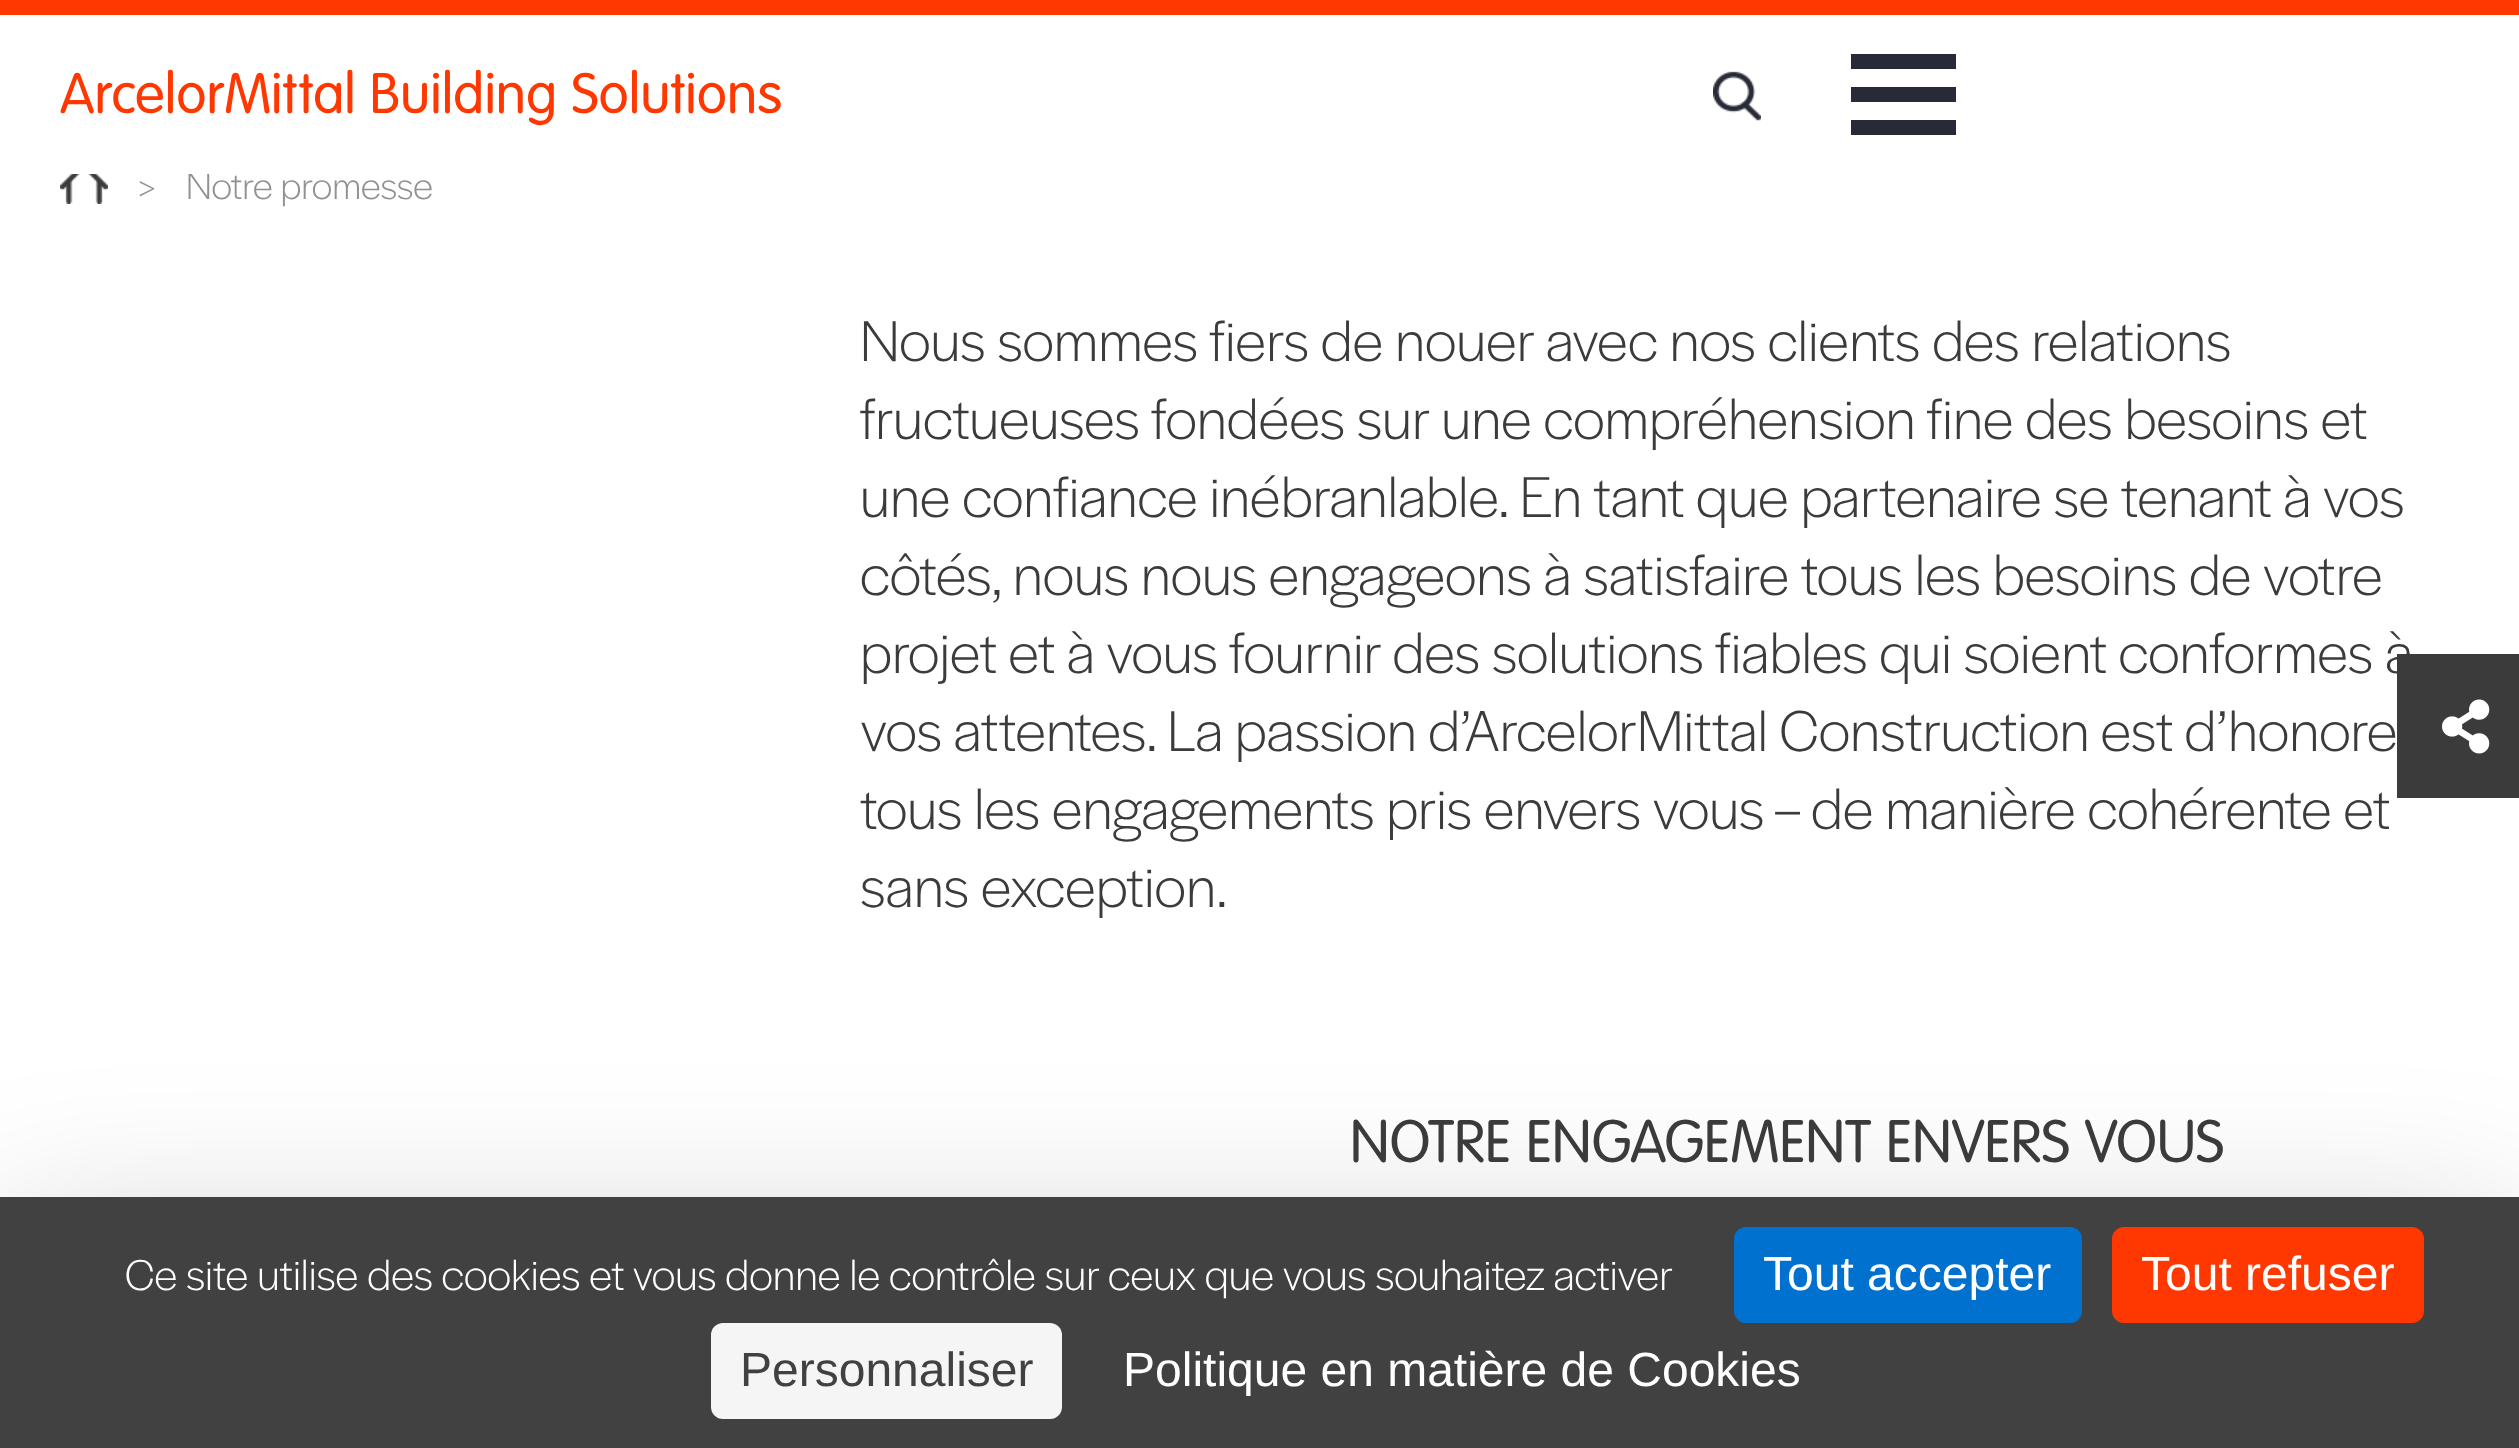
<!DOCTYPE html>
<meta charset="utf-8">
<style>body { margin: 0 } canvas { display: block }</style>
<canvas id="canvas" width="2519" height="1448"></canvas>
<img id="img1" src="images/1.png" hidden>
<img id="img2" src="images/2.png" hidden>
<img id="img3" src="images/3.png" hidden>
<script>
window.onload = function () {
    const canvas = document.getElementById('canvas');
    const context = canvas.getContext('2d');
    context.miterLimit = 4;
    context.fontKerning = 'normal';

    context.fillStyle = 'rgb(255, 255, 255)';
    context.fillRect(0, 0, 2519, 1448);
    context.fillStyle = 'rgb(255, 55, 0)';
    context.fillRect(0, 0, 2519, 15);
    context.drawImage(document.getElementById('img1'), 1713, 71, 48, 50);
    context.fillStyle = 'rgb(40, 42, 56)';
    context.fillRect(1851, 54, 105, 15);
    context.fillRect(1851, 87, 105, 15);
    context.fillRect(1851, 120, 105, 15);
    context.drawImage(document.getElementById('img2'), 60, 174, 48, 30);
    context.fillStyle = 'rgb(59, 59, 59)';
    context.fillRect(2397, 654, 122, 144);
    context.drawImage(document.getElementById('img3'), 2442, 699, 48, 55);
    context.fillStyle = 'rgba(0, 0, 0, 0.25)';
    context.filter = 'blur(90px)';
    context.beginPath();
    context.rect(0, 1257, 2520, 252);
    context.fill();
    context.filter = 'none';
    context.fillStyle = 'rgb(65, 65, 65)';
    context.fillRect(0, 1197, 2519, 251);
    context.fillStyle = 'rgb(0, 113, 206)';
    context.beginPath();
    context.roundRect(1734, 1227, 348, 96, 12);
    context.fill();
    context.fillStyle = 'rgb(255, 55, 0)';
    context.beginPath();
    context.roundRect(2112, 1227, 312, 96, 12);
    context.fill();
    context.fillStyle = 'rgb(245, 245, 245)';
    context.beginPath();
    context.roundRect(711, 1323, 351, 96, 12);
    context.fill();
    context.font = '300 60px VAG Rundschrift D';
    context.fillStyle = 'rgb(255, 55, 0)';
    context.fillText('ArcelorMittal Building Solutions', 60, 113);
    context.font = '300 39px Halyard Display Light';
    context.fillStyle = 'rgb(145, 145, 145)';
    context.fillText('>', 138, 199);
    context.fillText('Notre promesse', 186, 199);
    context.fillStyle = 'rgb(255, 255, 255)';
    context.fillRect(188, 173, 21, 1);
    context.font = '300 60px Halyard Display Light';
    context.fillStyle = 'rgb(59, 59, 59)';
    context.fillText('Nous sommes fiers de nouer avec nos clients des relations', 860, 361);
    context.fillText('fructueuses fondées sur une compréhension fine des besoins et', 860, 439);
    context.fillText('une confiance inébranlable. En tant que partenaire se tenant à vos', 860, 517);
    context.fillText('côtés, nous nous engageons à satisfaire tous les besoins de votre', 860, 595);
    context.fillText('projet et à vous fournir des solutions fiables qui soient conformes à', 860, 673);
    context.wordSpacing = '-0.25px';
    context.fillText('vos attentes. La passion d’ArcelorMittal Construction est d’honore', 860, 751);
    context.wordSpacing = '0px';
    context.fillText('tous les engagements pris envers vous – de manière cohérente et', 860, 829);
    context.fillText('sans exception.', 860, 907);
    context.font = '300 63px VAG Rundschrift D';
    context.fillText('NOTRE ENGAGEMENT ENVERS VOUS', 1350, 1162);
    context.font = '300 45px Halyard Display Light';
    context.fillStyle = 'rgb(255, 255, 255)';
    context.fillText('Ce site utilise des cookies et vous donne le contrôle sur ceux que vous souhaitez activer', 125, 1290);
    context.font = '48px Liberation Sans';
    context.fillText('Tout accepter', 1763, 1290);
    context.fillText('Tout refuser', 2141, 1290);
    context.fillStyle = 'rgb(65, 65, 65)';
    context.fillText('Personnaliser', 740, 1386);
    context.fillStyle = 'rgb(255, 255, 255)';
    context.fillText('Politique en matière de Cookies', 1123, 1386);
};
</script>
